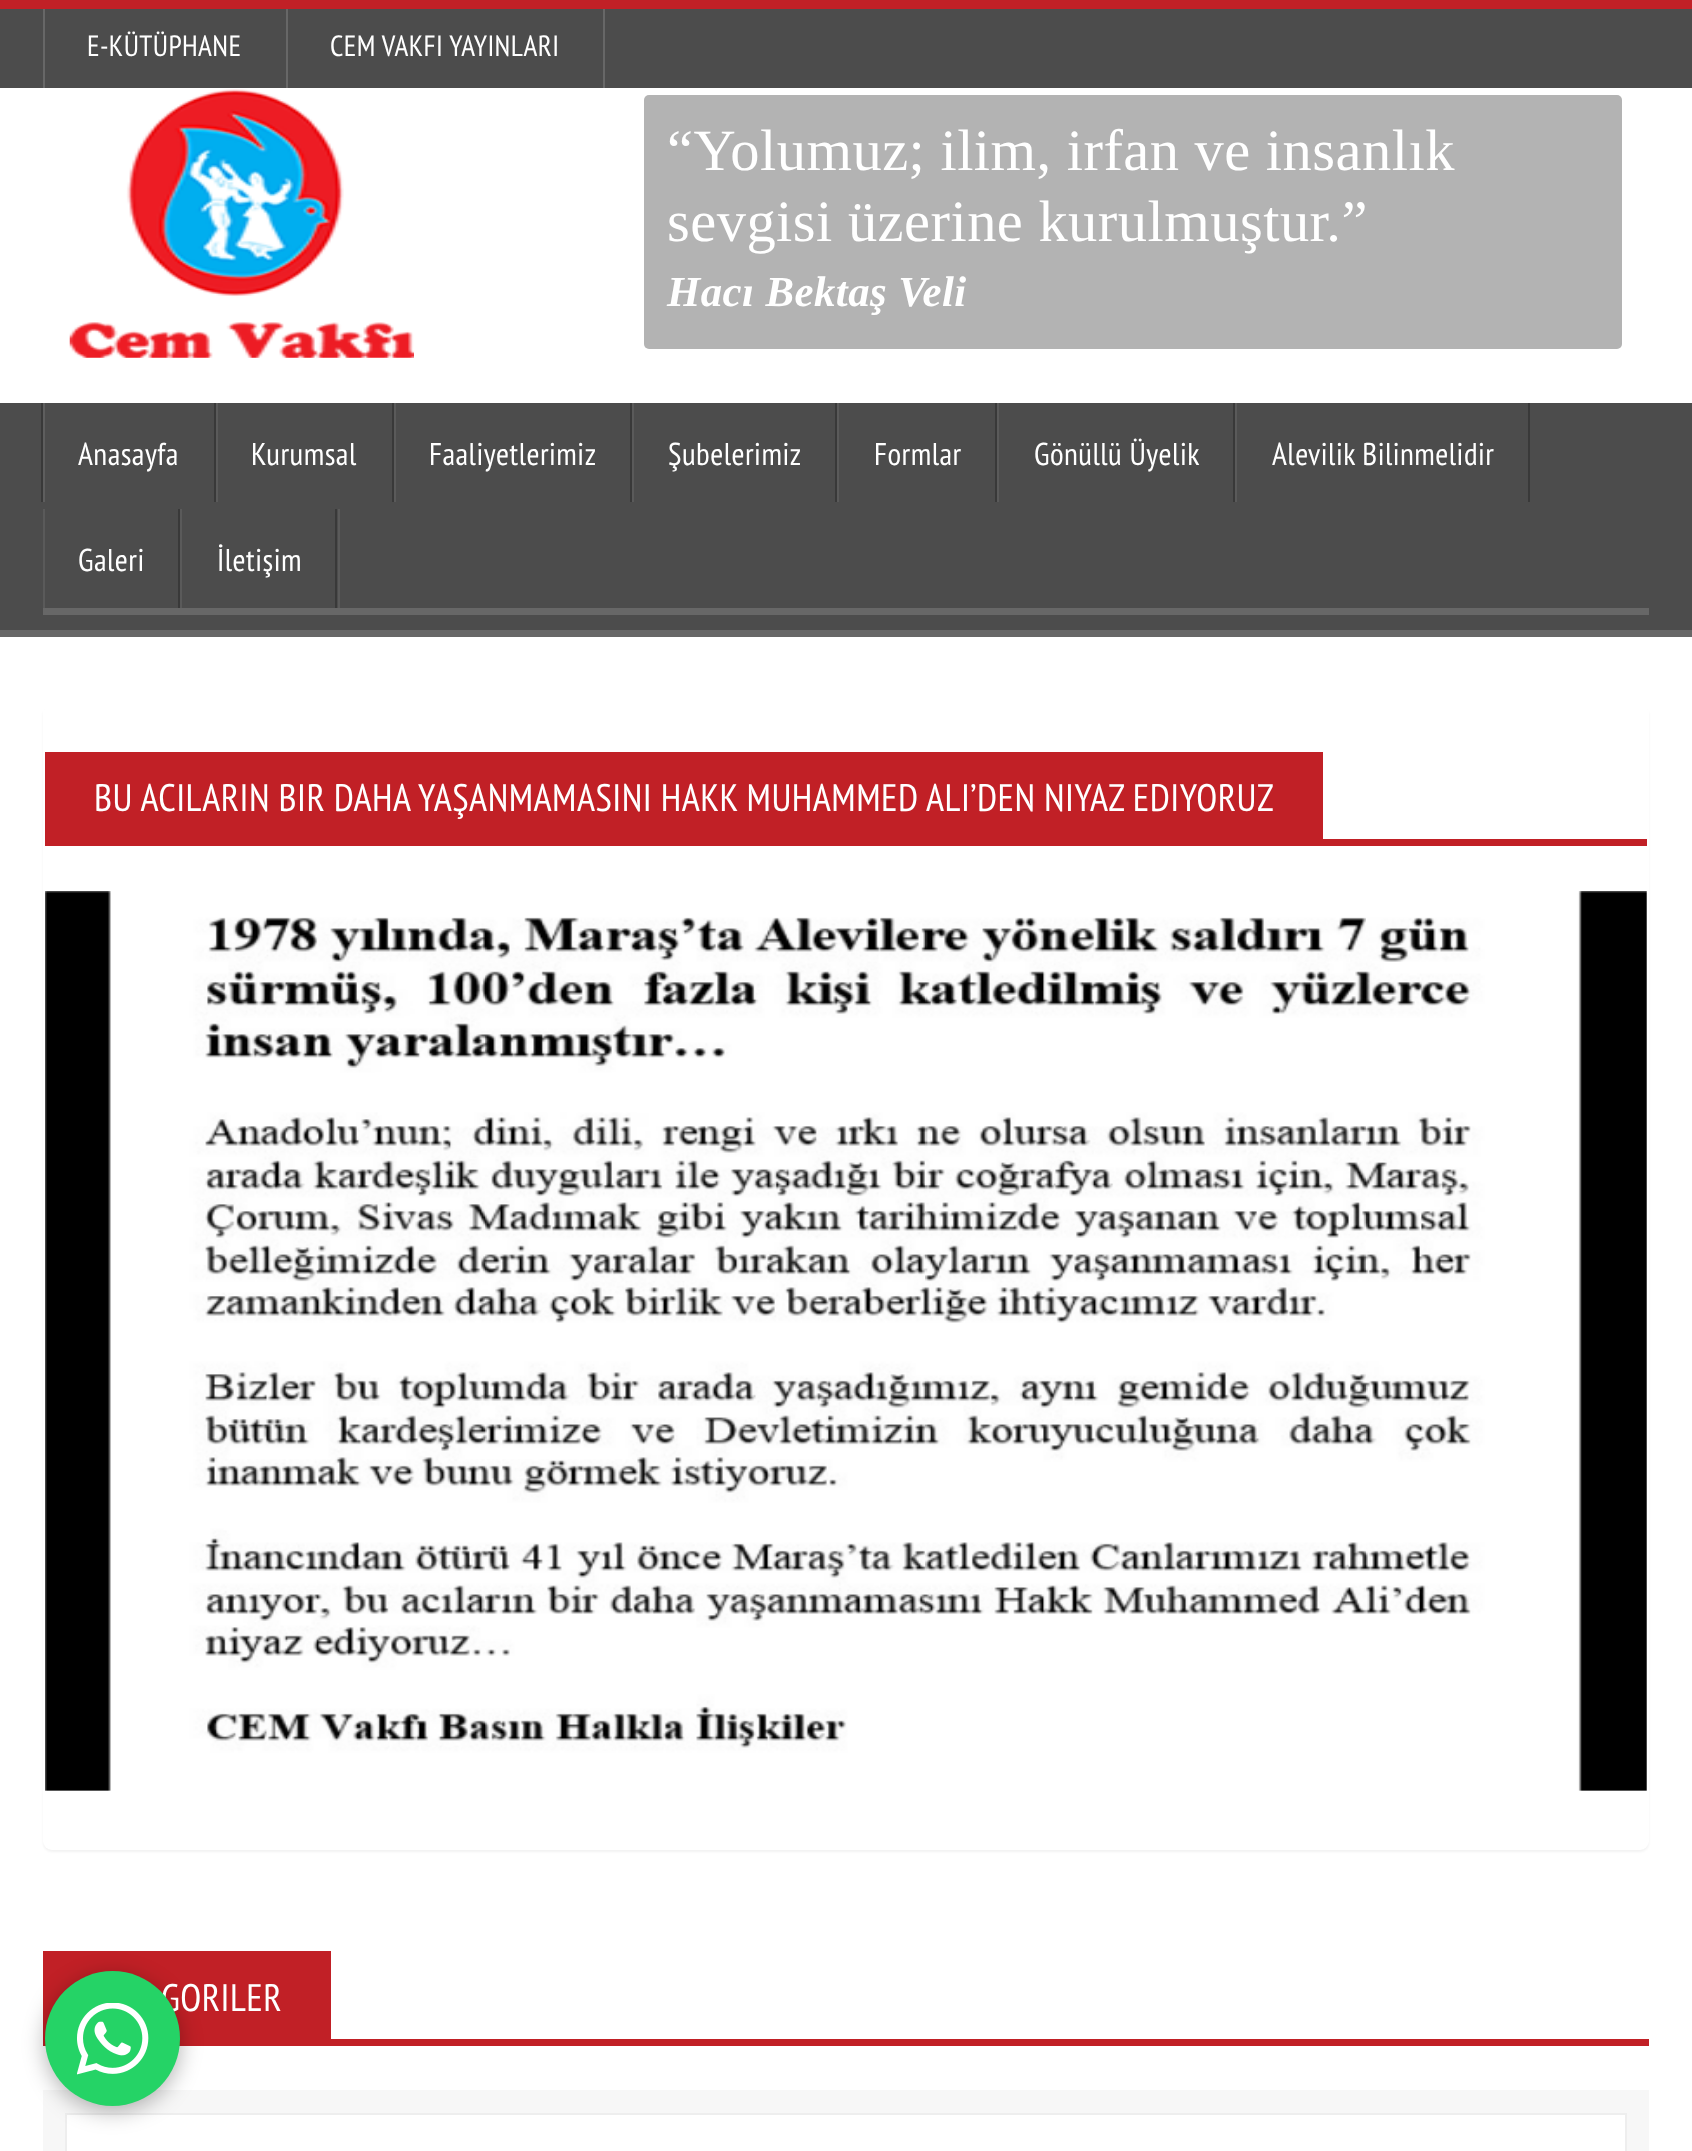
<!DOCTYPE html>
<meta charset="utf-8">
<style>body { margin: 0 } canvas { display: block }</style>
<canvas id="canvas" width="1692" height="2151"></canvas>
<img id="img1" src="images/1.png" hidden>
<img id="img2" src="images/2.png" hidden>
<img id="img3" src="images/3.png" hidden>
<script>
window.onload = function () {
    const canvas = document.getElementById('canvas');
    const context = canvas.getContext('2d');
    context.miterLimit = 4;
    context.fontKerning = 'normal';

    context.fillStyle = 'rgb(255, 255, 255)';
    context.fillRect(0, 0, 1692, 2151);
    context.fillStyle = 'rgb(76, 76, 76)';
    context.fillRect(0, 9, 1692, 79);
    context.fillStyle = 'rgb(193, 32, 38)';
    context.fillRect(0, 0, 1692, 9);
    context.fillStyle = 'rgb(103, 103, 103)';
    context.fillRect(43, 9, 2, 79);
    context.fillRect(286, 9, 2, 79);
    context.fillRect(603, 9, 2, 79);
    context.drawImage(document.getElementById('img1'), 69, 89, 345, 269);
    context.fillStyle = 'rgb(179, 179, 179)';
    context.beginPath();
    context.roundRect(644, 95, 978, 254, 5);
    context.fill();
    context.fillStyle = 'rgb(76, 76, 76)';
    context.fillRect(0, 403, 1692, 227);
    context.fillStyle = 'rgb(103, 103, 103)';
    context.fillRect(0, 630, 1692, 7);
    context.fillRect(43, 608, 1606, 7);
    context.fillStyle = 'rgb(57, 57, 57)';
    context.beginPath();
    context.moveTo(41, 403);
    context.lineTo(41, 502);
    context.lineTo(214, 502);
    context.lineTo(43, 502);
    context.lineTo(43, 403);
    context.closePath();
    context.fill();
    context.fillRect(214, 403, 2, 99);
    context.fillStyle = 'rgb(94, 94, 94)';
    context.fillRect(43, 403, 2, 99);
    context.fillStyle = 'rgb(57, 57, 57)';
    context.fillRect(392, 403, 2, 99);
    context.fillStyle = 'rgb(90, 90, 90)';
    context.fillRect(216, 403, 2, 99);
    context.fillStyle = 'rgb(57, 57, 57)';
    context.fillRect(630, 403, 2, 99);
    context.fillStyle = 'rgb(90, 90, 90)';
    context.fillRect(394, 403, 2, 99);
    context.fillStyle = 'rgb(57, 57, 57)';
    context.fillRect(835, 403, 2, 99);
    context.fillStyle = 'rgb(90, 90, 90)';
    context.fillRect(632, 403, 2, 99);
    context.fillStyle = 'rgb(57, 57, 57)';
    context.fillRect(995, 403, 2, 99);
    context.fillStyle = 'rgb(90, 90, 90)';
    context.fillRect(837, 403, 2, 99);
    context.fillStyle = 'rgb(57, 57, 57)';
    context.fillRect(1233, 403, 2, 99);
    context.fillStyle = 'rgb(90, 90, 90)';
    context.fillRect(997, 403, 2, 99);
    context.fillStyle = 'rgb(57, 57, 57)';
    context.fillRect(1528, 403, 2, 99);
    context.fillStyle = 'rgb(90, 90, 90)';
    context.fillRect(1235, 403, 2, 99);
    context.fillStyle = 'rgb(57, 57, 57)';
    context.fillRect(178, 509, 2, 99);
    context.fillStyle = 'rgb(90, 90, 90)';
    context.fillRect(43, 509, 2, 99);
    context.beginPath();
    context.moveTo(182, 608);
    context.lineTo(340, 608);
    context.lineTo(340, 509);
    context.lineTo(338, 509);
    context.lineTo(338, 608);
    context.closePath();
    context.fill();
    context.fillStyle = 'rgb(57, 57, 57)';
    context.fillRect(335, 509, 2, 99);
    context.fillStyle = 'rgb(90, 90, 90)';
    context.fillRect(180, 509, 2, 99);
    context.fillStyle = 'rgba(0, 0, 0, 0.05)';
    context.filter = 'blur(1px)';
    context.beginPath();
    context.roundRect(43, 707, 1606, 1145, 9);
    context.fill();
    context.filter = 'none';
    context.fillStyle = 'rgb(255, 255, 255)';
    context.beginPath();
    context.roundRect(43, 704, 1606, 1146, 9);
    context.fill();
    context.fillStyle = 'rgb(193, 32, 38)';
    context.fillRect(45, 752, 1278, 87);
    context.fillRect(45, 839, 1602, 7);
    context.drawImage(document.getElementById('img2'), 45, 891, 1602, 900);
    context.fillRect(43, 1951, 288, 88);
    context.fillRect(43, 2039, 1606, 7);
    context.fillStyle = 'rgb(247, 247, 247)';
    context.fillRect(43, 2090, 1606, 61);
    context.fillStyle = 'rgb(255, 255, 255)';
    context.beginPath();
    context.rect(66, 2114, 1560, 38);
    context.fill();
    context.strokeStyle = 'rgb(238, 238, 238)';
    context.lineWidth = 2;
    context.stroke();
    context.fillStyle = 'rgba(0, 0, 0, 0.3)';
    context.filter = 'blur(11px)';
    context.beginPath();
    context.roundRect(45, 1976, 135, 135, 67.5);
    context.fill();
    context.filter = 'none';
    context.letterSpacing = '0.4px';
    context.font = '29.25px PT Sans Narrow';
    context.fillStyle = 'rgb(255, 255, 255)';
    context.fillText('E-KÜTÜPHANE', 87, 56);
    context.fillText('CEM VAKFI YAYINLARI', 330, 56);
    context.letterSpacing = '0.47px';
    context.font = '58.5px Liberation Serif';
    context.fillText('“Yolumuz; ilim, irfan ve insanlık', 667, 170);
    context.fillText('sevgisi üzerine kurulmuştur.”', 667, 241);
    context.font = 'italic bold 42.75px Liberation Serif';
    context.fillText('Hacı Bektaş Veli', 667, 306);
    context.font = '31.5px PT Sans Narrow';
    context.fillText('Anasayfa', 78, 465);
    context.fillText('Kurumsal', 251, 465);
    context.fillText('Faaliyetlerimiz', 429, 465);
    context.fillText('Şubelerimiz', 668, 465);
    context.fillText('Formlar', 874, 465);
    context.fillText('Gönüllü Üyelik', 1034, 465);
    context.fillText('Alevilik Bilinmelidir', 1272, 465);
    context.fillText('Galeri', 78, 571);
    context.fillText('İletişim', 217, 571);
    context.font = '38.25px PT Sans Narrow';
    context.fillText('BU ACILARIN BIR DAHA YAŞANMAMASINI HAKK MUHAMMED ALI’DEN NIYAZ EDIYORUZ', 94, 811);
    context.fillText('GORILER', 161, 2011);
    context.fillStyle = 'rgb(37, 211, 102)';
    context.beginPath();
    context.arc(112.5, 2038.5, 67.5, 0, 2 * Math.PI);
    context.fill();
    context.drawImage(document.getElementById('img3'), 77, 2003, 72, 72);
};
</script>
